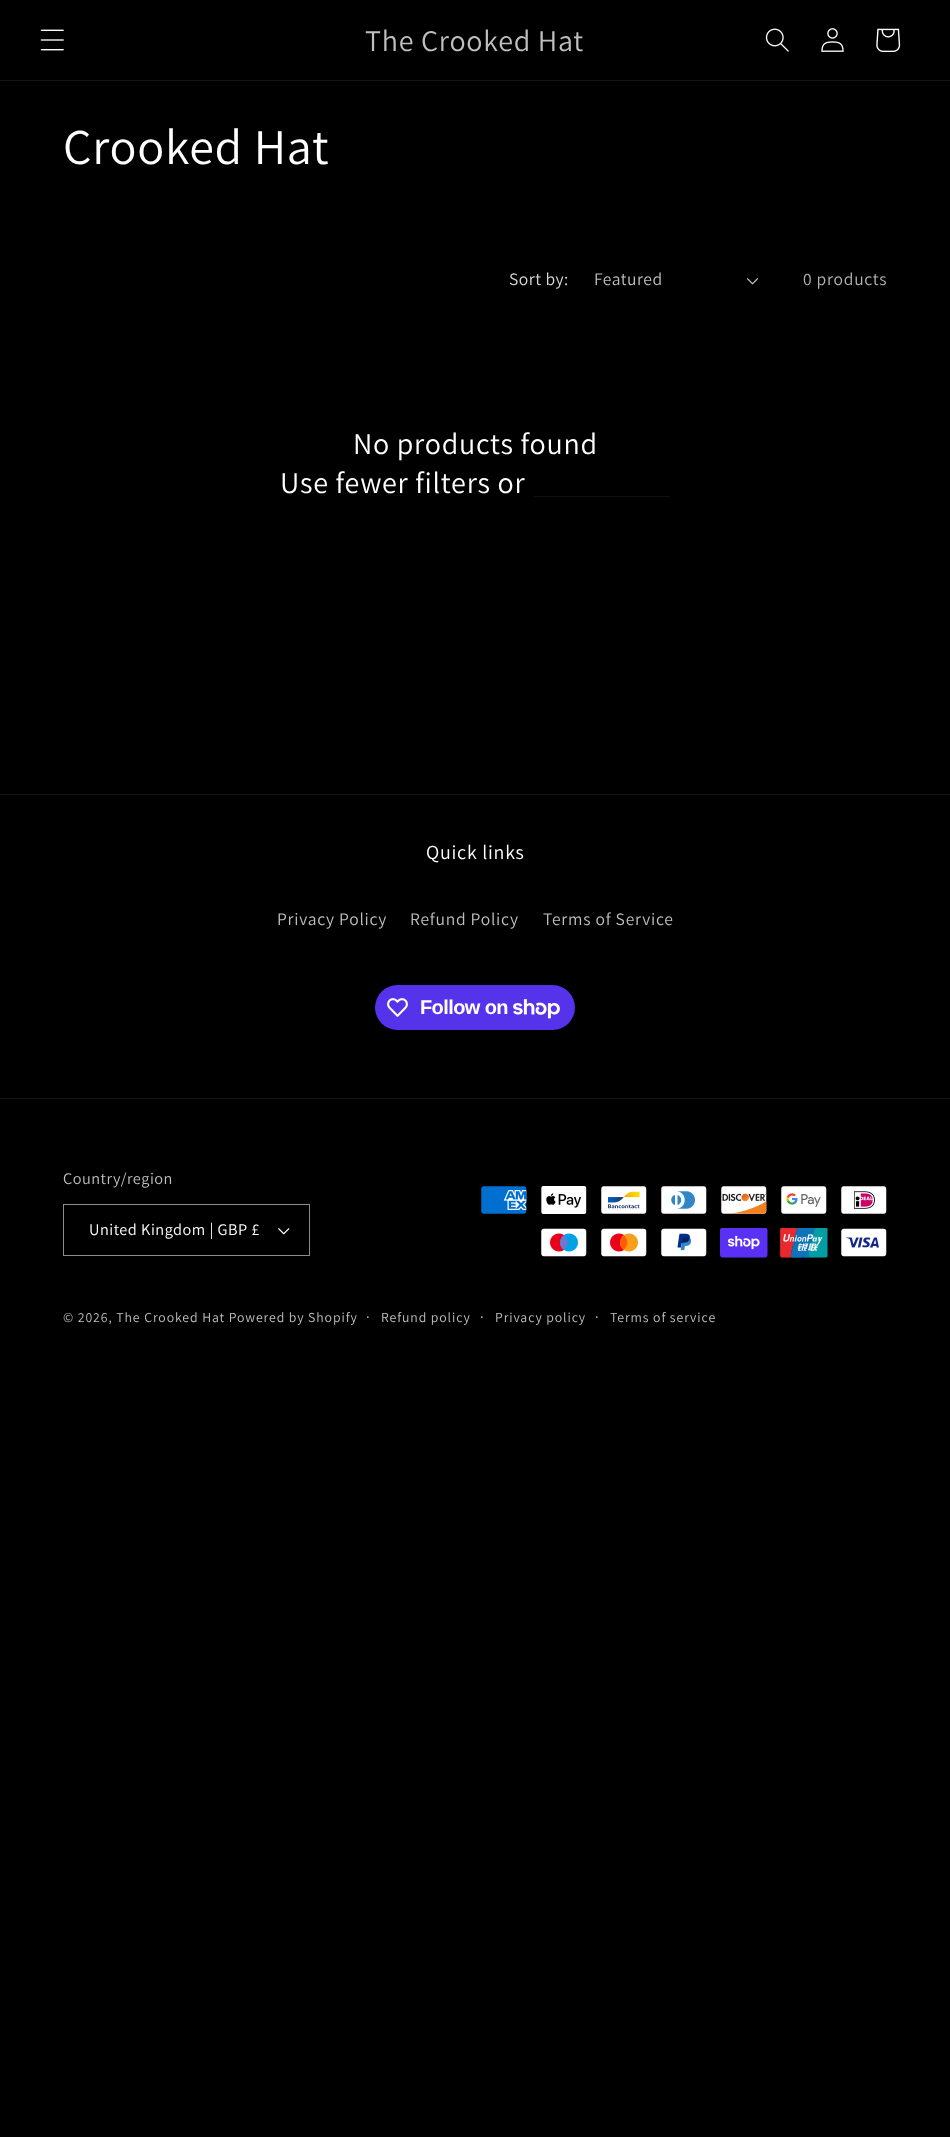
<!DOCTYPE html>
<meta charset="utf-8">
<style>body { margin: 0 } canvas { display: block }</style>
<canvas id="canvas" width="950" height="2137"></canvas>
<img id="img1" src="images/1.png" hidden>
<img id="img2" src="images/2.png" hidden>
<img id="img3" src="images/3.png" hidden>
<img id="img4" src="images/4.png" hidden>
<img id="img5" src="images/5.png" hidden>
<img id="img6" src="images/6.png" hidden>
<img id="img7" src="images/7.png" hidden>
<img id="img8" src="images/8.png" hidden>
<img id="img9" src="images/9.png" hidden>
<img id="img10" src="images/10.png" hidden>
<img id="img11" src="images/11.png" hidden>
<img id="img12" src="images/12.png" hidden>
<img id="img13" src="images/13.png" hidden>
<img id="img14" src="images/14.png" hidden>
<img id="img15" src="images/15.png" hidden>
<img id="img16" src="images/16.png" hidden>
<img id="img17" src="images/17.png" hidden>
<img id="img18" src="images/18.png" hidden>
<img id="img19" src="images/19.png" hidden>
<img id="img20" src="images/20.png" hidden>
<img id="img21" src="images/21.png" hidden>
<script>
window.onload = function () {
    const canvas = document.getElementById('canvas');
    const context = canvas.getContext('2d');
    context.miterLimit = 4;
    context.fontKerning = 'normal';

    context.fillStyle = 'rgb(0, 0, 0)';
    context.fillRect(0, 0, 950, 2137);
    context.fillStyle = 'rgb(20, 20, 20)';
    context.fillRect(0, 80, 950, 1);
    context.drawImage(document.getElementById('img1'), 40, 29, 24, 22);
    context.drawImage(document.getElementById('img2'), 765, 28, 24, 24);
    context.drawImage(document.getElementById('img3'), 821, 28, 23, 24);
    context.drawImage(document.getElementById('img4'), 876, 28, 25, 24);
    context.drawImage(document.getElementById('img5'), 746, 278, 13, 7);
    context.fillStyle = 'rgb(15, 15, 15)';
    context.fillRect(533, 496, 137, 1);
    context.fillStyle = 'rgb(20, 20, 20)';
    context.fillRect(0, 794, 950, 1);
    context.fillStyle = 'rgb(84, 51, 235)';
    context.beginPath();
    context.roundRect(375, 985, 200, 45, 22.5);
    context.fill();
    context.drawImage(document.getElementById('img6'), 387, 998, 21, 19);
    context.drawImage(document.getElementById('img7'), 513, 999, 47, 20);
    context.fillStyle = 'rgb(20, 20, 20)';
    context.fillRect(0, 1098, 950, 1);
    context.drawImage(document.getElementById('img8'), 278, 1228, 12, 7);
    context.strokeStyle = 'rgb(140, 140, 140)';
    context.strokeRect(63.5, 1204.5, 246, 51);
    context.drawImage(document.getElementById('img9'), 481, 1186, 46, 28);
    context.drawImage(document.getElementById('img10'), 541, 1186, 46, 28);
    context.drawImage(document.getElementById('img11'), 601, 1186, 46, 28);
    context.drawImage(document.getElementById('img12'), 661, 1186, 46, 28);
    context.drawImage(document.getElementById('img13'), 721, 1186, 46, 28);
    context.drawImage(document.getElementById('img14'), 781, 1186, 46, 28);
    context.drawImage(document.getElementById('img15'), 841, 1186, 46, 28);
    context.drawImage(document.getElementById('img16'), 541, 1228, 46, 29);
    context.drawImage(document.getElementById('img17'), 601, 1228, 46, 29);
    context.drawImage(document.getElementById('img18'), 661, 1228, 46, 29);
    context.drawImage(document.getElementById('img19'), 720, 1228, 48, 30);
    context.drawImage(document.getElementById('img20'), 780, 1228, 48, 30);
    context.drawImage(document.getElementById('img21'), 841, 1228, 46, 29);
    context.letterSpacing = '0.75px';
    context.font = '30px Assistant';
    context.fillStyle = 'rgb(191, 191, 191)';
    context.fillText('The Crooked Hat', 365, 51);
    context.font = '50px Assistant';
    context.fillStyle = 'rgb(255, 255, 255)';
    context.fillText('Crooked Hat', 63, 164);
    context.letterSpacing = '0.5px';
    context.font = '17.5px Assistant';
    context.fillStyle = 'rgb(217, 217, 217)';
    context.fillText('Sort by:', 509, 285);
    context.fillStyle = 'rgb(191, 191, 191)';
    context.fillText('Featured', 594, 285);
    context.letterSpacing = '0.75px';
    context.fillStyle = 'rgb(179, 179, 179)';
    context.fillText('0 products', 803, 285);
    context.font = '30px Assistant';
    context.fillStyle = 'rgb(255, 255, 255)';
    context.fillText('No products found', 353, 454);
    context.fillText('Use fewer filters or', 280, 493);
    context.font = '20px Assistant';
    context.fillText('Quick links', 426, 859);
    context.font = '17.5px Assistant';
    context.fillStyle = 'rgb(191, 191, 191)';
    context.fillText('Privacy Policy', 277, 925);
    context.fillText('Refund Policy', 410, 925);
    context.fillText('Terms of Service', 543, 925);
    context.letterSpacing = '-0.6px';
    context.font = 'bold 20px Liberation Sans';
    context.fillStyle = 'rgb(255, 255, 255)';
    context.fillText('Follow on', 420, 1014);
    context.letterSpacing = '0.5px';
    context.font = '16.25px Assistant';
    context.fillStyle = 'rgb(191, 191, 191)';
    context.fillText('Country/region', 63, 1184);
    context.fillStyle = 'rgb(255, 255, 255)';
    context.fillText('United Kingdom | GBP £', 89, 1235);
    context.letterSpacing = '0.9px';
    context.font = '13.75px Assistant';
    context.fillStyle = 'rgb(191, 191, 191)';
    context.fillText('© 2026, The Crooked Hat Powered by Shopify', 63, 1322);
    context.font = '15px Assistant';
    context.fillText('·', 366, 1322);
    context.font = '13.75px Assistant';
    context.fillText('Refund policy', 381, 1322);
    context.font = '15px Assistant';
    context.fillText('·', 480, 1322);
    context.font = '13.75px Assistant';
    context.fillText('Privacy policy', 495, 1322);
    context.font = '15px Assistant';
    context.fillText('·', 595, 1322);
    context.font = '13.75px Assistant';
    context.fillText('Terms of service', 610, 1322);
};
</script>
